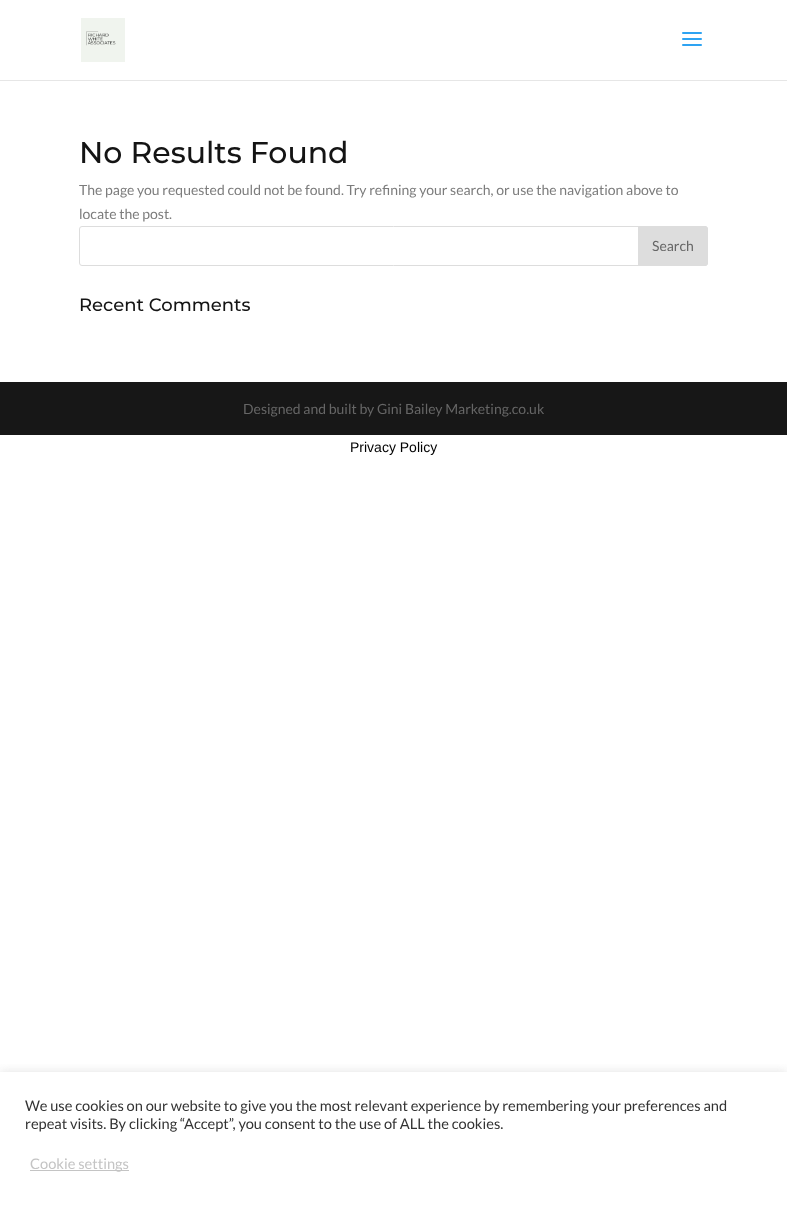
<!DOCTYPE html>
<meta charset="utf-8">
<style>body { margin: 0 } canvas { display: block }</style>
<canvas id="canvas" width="787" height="1209"></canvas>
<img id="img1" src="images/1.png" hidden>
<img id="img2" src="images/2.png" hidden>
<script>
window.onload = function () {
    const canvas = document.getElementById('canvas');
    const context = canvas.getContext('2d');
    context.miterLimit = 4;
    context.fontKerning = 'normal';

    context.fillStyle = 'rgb(255, 255, 255)';
    context.fillRect(0, 0, 787, 1209);
    context.fillStyle = 'rgb(230, 230, 230)';
    context.fillRect(0, 80, 787, 1);
    context.drawImage(document.getElementById('img1'), 81, 18, 44, 44);
    context.drawImage(document.getElementById('img2'), 682, 32, 20, 14);
    context.beginPath();
    context.roundRect(79.5, 226.5, 628, 39, 2.5);
    context.strokeStyle = 'rgb(221, 221, 221)';
    context.stroke();
    context.fillStyle = 'rgb(221, 221, 221)';
    context.beginPath();
    context.roundRect(638.5, 226.5, 69, 39, [0, 2.5, 2.5, 0]);
    context.fill();
    context.stroke();
    context.fillStyle = 'rgb(23, 23, 23)';
    context.fillRect(0, 382, 787, 53);
    context.save();
    context.beginPath();
    context.rect(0, 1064, 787, 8);
    context.clip();
    context.fillStyle = 'rgba(172, 171, 171, 0.3)';
    context.filter = 'blur(5px)';
    context.beginPath();
    context.rect(0, 1071, 787, 137);
    context.fill();
    context.filter = 'none';
    context.restore();
    context.fillStyle = 'rgb(196, 196, 196)';
    context.fillRect(30, 1170, 99, 1);
    context.font = '500 30px Montserrat';
    context.fillStyle = 'rgb(20, 20, 20)';
    context.fillText('No Results Found', 79, 163);
    context.font = '14px Lato';
    context.fillStyle = 'rgb(124, 124, 124)';
    context.fillText('The page you requested could not be found. Try refining your search, or use the navigation above to', 79, 195);
    context.fillText('locate the post.', 79, 219);
    context.fillStyle = 'rgb(102, 102, 102)';
    context.fillText('Search', 652, 251);
    context.font = '500 18px Montserrat';
    context.fillStyle = 'rgb(20, 20, 20)';
    context.fillText('Recent Comments', 79, 311);
    context.font = '14px Lato';
    context.fillStyle = 'rgb(102, 102, 102)';
    context.fillText('Designed and built by Gini Bailey Marketing.co.uk', 243, 414);
    context.font = '14px Liberation Sans';
    context.fillStyle = 'rgb(0, 0, 0)';
    context.fillText('Privacy Policy', 350, 452);
    context.font = '14.65px Lato';
    context.fillStyle = 'rgb(51, 51, 51)';
    context.fillText('We use cookies on our website to give you the most relevant experience by remembering your preferences and', 25, 1111);
    context.fillText('repeat visits. By clicking “Accept”, you consent to the use of ALL the cookies.', 25, 1129);
    context.fillStyle = 'rgb(196, 196, 196)';
    context.fillText('Cookie settings', 30, 1169);
};
</script>
